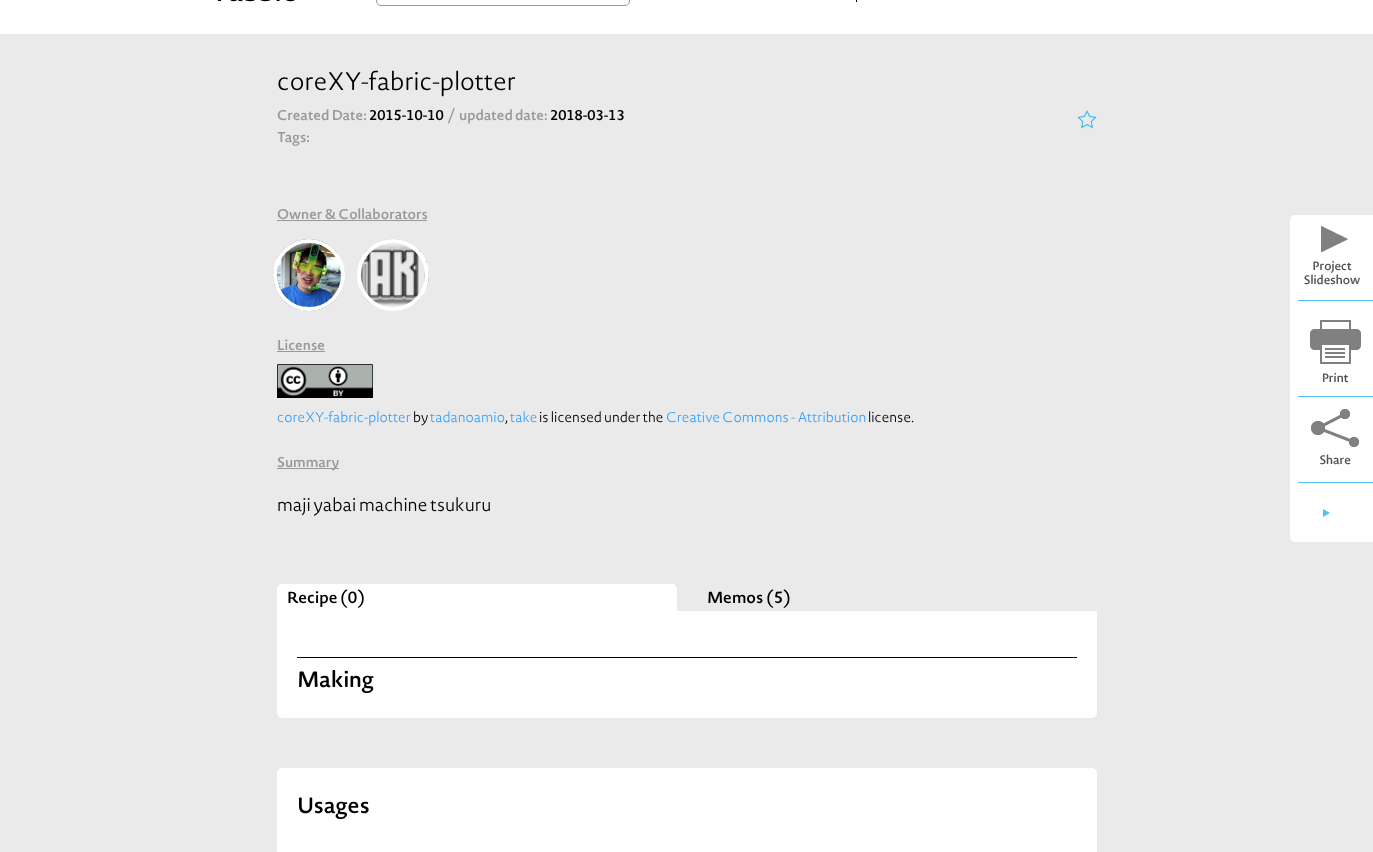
<!DOCTYPE html>
<meta charset="utf-8">
<style>body { margin: 0 } canvas { display: block }</style>
<canvas id="canvas" width="1373" height="852"></canvas>
<img id="img1" src="images/1.png" hidden>
<img id="img2" src="images/2.png" hidden>
<img id="img3" src="images/3.png" hidden>
<img id="img4" src="images/4.png" hidden>
<img id="img5" src="images/5.png" hidden>
<img id="img6" src="images/6.png" hidden>
<img id="img7" src="images/7.png" hidden>
<img id="img8" src="images/8.png" hidden>
<script>
window.onload = function () {
    const canvas = document.getElementById('canvas');
    const context = canvas.getContext('2d');
    context.miterLimit = 4;
    context.fontKerning = 'normal';

    context.fillStyle = 'rgb(234, 234, 234)';
    context.fillRect(0, 0, 1373, 852);
    context.fillStyle = 'rgb(255, 255, 255)';
    context.fillRect(0, 0, 1373, 34);
    context.drawImage(document.getElementById('img1'), 217, 0, 78, 2);
    context.beginPath();
    context.roundRect(376.5, -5.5, 253, 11, 4.5);
    context.strokeStyle = 'rgb(153, 153, 153)';
    context.stroke();
    context.fillStyle = 'rgb(0, 0, 0)';
    context.fillRect(856, 0, 1, 2);
    context.drawImage(document.getElementById('img2'), 1077, 110, 20, 19);
    context.fillStyle = 'rgb(153, 153, 153)';
    context.fillRect(277, 220, 150, 1);
    context.drawImage(document.getElementById('img3'), 273, 239, 72, 72);
    context.beginPath();
    context.arc(309, 275, 34, 0, 2 * Math.PI);
    context.strokeStyle = 'rgb(255, 255, 255)';
    context.lineWidth = 4;
    context.stroke();
    context.drawImage(document.getElementById('img4'), 359, 239, 70, 72);
    context.beginPath();
    context.arc(393, 275, 34, 0, 2 * Math.PI);
    context.stroke();
    context.fillRect(277, 351, 48, 1);
    context.drawImage(document.getElementById('img5'), 277, 364, 96, 34);
    context.fillRect(277, 468, 62, 1);
    context.fillStyle = 'rgb(255, 255, 255)';
    context.beginPath();
    context.roundRect(1290, 215, 83, 327, [5, 0, 0, 5]);
    context.fill();
    context.drawImage(document.getElementById('img6'), 1304, 226, 56, 59);
    context.fillStyle = 'rgb(82, 195, 241)';
    context.fillRect(1298, 300, 75, 1);
    context.drawImage(document.getElementById('img7'), 1310, 320, 51, 63);
    context.fillRect(1298, 396, 75, 1);
    context.fillRect(1298, 482, 75, 1);
    context.drawImage(document.getElementById('img8'), 1311, 409, 48, 56);
    context.beginPath();
    context.moveTo(1323, 517);
    context.lineTo(1323, 509);
    context.lineTo(1330, 513);
    context.closePath();
    context.fill();
    context.fillStyle = 'rgb(255, 255, 255)';
    context.fillRect(277, 611, 820, 87);
    context.beginPath();
    context.roundRect(277, 584, 400, 28, [5, 5, 0, 0]);
    context.fill();
    context.fillStyle = 'rgb(0, 0, 0)';
    context.fillRect(297, 657, 780, 1);
    context.fillStyle = 'rgb(255, 255, 255)';
    context.beginPath();
    context.roundRect(277, 698, 820, 20, [0, 0, 5, 5]);
    context.fill();
    context.beginPath();
    context.roundRect(277, 768, 820, 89, 5);
    context.fill();
    context.font = '300 25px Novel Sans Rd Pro';
    context.fillStyle = 'rgb(0, 0, 0)';
    context.fillText('coreXY-fabric-plotter', 277, 90);
    context.font = '600 14px Novel Sans Rd Pro';
    context.fillStyle = 'rgb(153, 153, 153)';
    context.fillText('Created Date:', 277, 120);
    context.fillStyle = 'rgb(0, 0, 0)';
    context.fillText('2015-10-10', 369, 120);
    context.fillStyle = 'rgb(153, 153, 153)';
    context.fillText('/', 448, 120);
    context.fillText('updated date:', 459, 120);
    context.fillStyle = 'rgb(0, 0, 0)';
    context.fillText('2018-03-13', 550, 120);
    context.fillStyle = 'rgb(153, 153, 153)';
    context.fillText('Tags:', 277, 142);
    context.fillText('Owner & Collaborators', 277, 219);
    context.fillText('License', 277, 350);
    context.font = '300 14px Novel Sans Rd Pro';
    context.fillStyle = 'rgb(59, 163, 254)';
    context.fillText('coreXY-fabric-plotter', 277, 422);
    context.fillStyle = 'rgb(0, 0, 0)';
    context.fillText('by', 413, 422);
    context.fillStyle = 'rgb(59, 163, 254)';
    context.fillText('tadanoamio', 430, 422);
    context.fillStyle = 'rgb(0, 0, 0)';
    context.fillText(',', 505, 422);
    context.fillStyle = 'rgb(59, 163, 254)';
    context.fillText('take', 510, 422);
    context.fillStyle = 'rgb(0, 0, 0)';
    context.fillText('is licensed under the', 539, 422);
    context.fillStyle = 'rgb(59, 163, 254)';
    context.fillText('Creative Commons - Attribution', 666, 422);
    context.fillStyle = 'rgb(0, 0, 0)';
    context.fillText('license.', 868, 422);
    context.font = '600 14px Novel Sans Rd Pro';
    context.fillStyle = 'rgb(153, 153, 153)';
    context.fillText('Summary', 277, 467);
    context.font = '300 18px Novel Sans Rd Pro';
    context.fillStyle = 'rgb(0, 0, 0)';
    context.fillText('maji yabai machine tsukuru', 277, 511);
    context.font = '600 16px Novel Sans Rd Pro';
    context.fillText('Recipe (0)', 287, 603);
    context.fillText('Memos (5)', 707, 603);
    context.font = '600 22px Novel Sans Rd Pro';
    context.fillText('Making', 297, 687);
    context.fillText('Usages', 297, 813);
};
</script>
